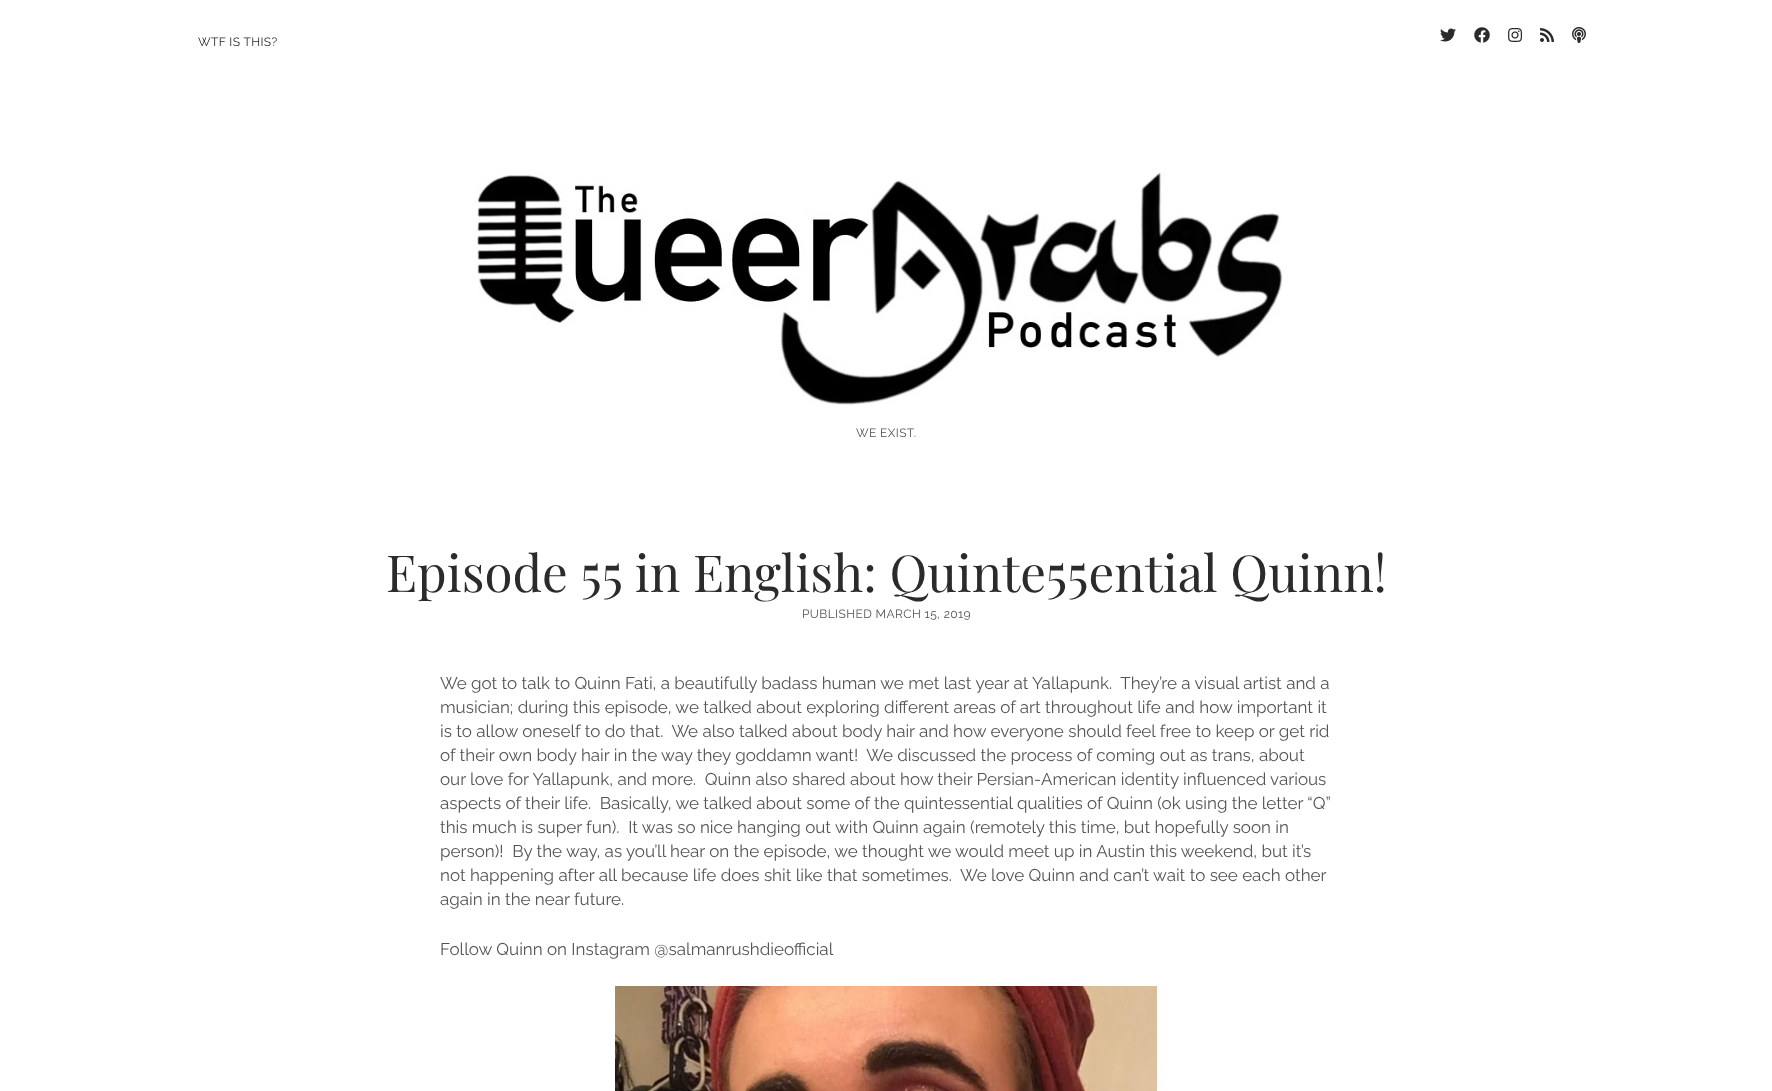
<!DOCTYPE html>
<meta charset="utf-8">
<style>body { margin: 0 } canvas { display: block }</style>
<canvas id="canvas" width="1772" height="1091"></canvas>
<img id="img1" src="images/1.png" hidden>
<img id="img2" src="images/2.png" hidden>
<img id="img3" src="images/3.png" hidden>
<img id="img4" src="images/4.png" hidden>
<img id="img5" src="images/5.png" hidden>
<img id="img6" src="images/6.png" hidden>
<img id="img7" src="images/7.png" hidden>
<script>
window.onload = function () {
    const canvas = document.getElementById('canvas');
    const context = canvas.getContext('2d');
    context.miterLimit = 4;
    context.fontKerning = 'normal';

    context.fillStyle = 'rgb(255, 255, 255)';
    context.fillRect(0, 0, 1772, 1091);
    context.drawImage(document.getElementById('img1'), 1440, 28, 16, 14);
    context.drawImage(document.getElementById('img2'), 1474, 27, 16, 16);
    context.drawImage(document.getElementById('img3'), 1508, 28, 15, 14);
    context.drawImage(document.getElementById('img4'), 1540, 28, 14, 14);
    context.drawImage(document.getElementById('img5'), 1572, 27, 14, 16);
    context.drawImage(document.getElementById('img6'), 476, 172, 807, 233);
    context.drawImage(document.getElementById('img7'), 615, 986, 542, 105);
    context.letterSpacing = '0.4px';
    context.font = '12px Raleway';
    context.fillStyle = 'rgb(43, 43, 43)';
    context.fillText('WTF IS THIS?', 198, 46);
    context.fillStyle = 'rgb(84, 84, 84)';
    context.fillText('WE EXIST.', 856, 437);
    context.letterSpacing = '0px';
    context.font = '51px Playfair Display';
    context.fillStyle = 'rgb(43, 43, 43)';
    context.fillText('Episode 55 in English: Quinte55ential Quinn!', 386, 592);
    context.letterSpacing = '0.4px';
    context.font = '12px Raleway';
    context.fillStyle = 'rgb(84, 84, 84)';
    context.fillText('PUBLISHED MARCH 15, 2019', 802, 618);
    context.letterSpacing = '0px';
    context.font = '17px Raleway';
    context.fillText('We got to talk to Quinn Fati, a beautifully badass human we met last year at Yallapunk.  They’re a visual artist and a', 440, 689);
    context.fillText('musician; during this episode, we talked about exploring different areas of art throughout life and how important it', 440, 713);
    context.fillText('is to allow oneself to do that.  We also talked about body hair and how everyone should feel free to keep or get rid', 440, 737);
    context.fillText('of their own body hair in the way they goddamn want!  We discussed the process of coming out as trans, about', 440, 761);
    context.fillText('our love for Yallapunk, and more.  Quinn also shared about how their Persian-American identity influenced various', 440, 785);
    context.fillText('aspects of their life.  Basically, we talked about some of the quintessential qualities of Quinn (ok using the letter “Q”', 440, 809);
    context.fillText('this much is super fun).  It was so nice hanging out with Quinn again (remotely this time, but hopefully soon in', 440, 833);
    context.fillText('person)!  By the way, as you’ll hear on the episode, we thought we would meet up in Austin this weekend, but it’s', 440, 857);
    context.fillText('not happening after all because life does shit like that sometimes.  We love Quinn and can’t wait to see each other', 440, 881);
    context.fillText('again in the near future.', 440, 905);
    context.fillText('Follow Quinn on Instagram @salmanrushdieofficial', 440, 955);
};
</script>
